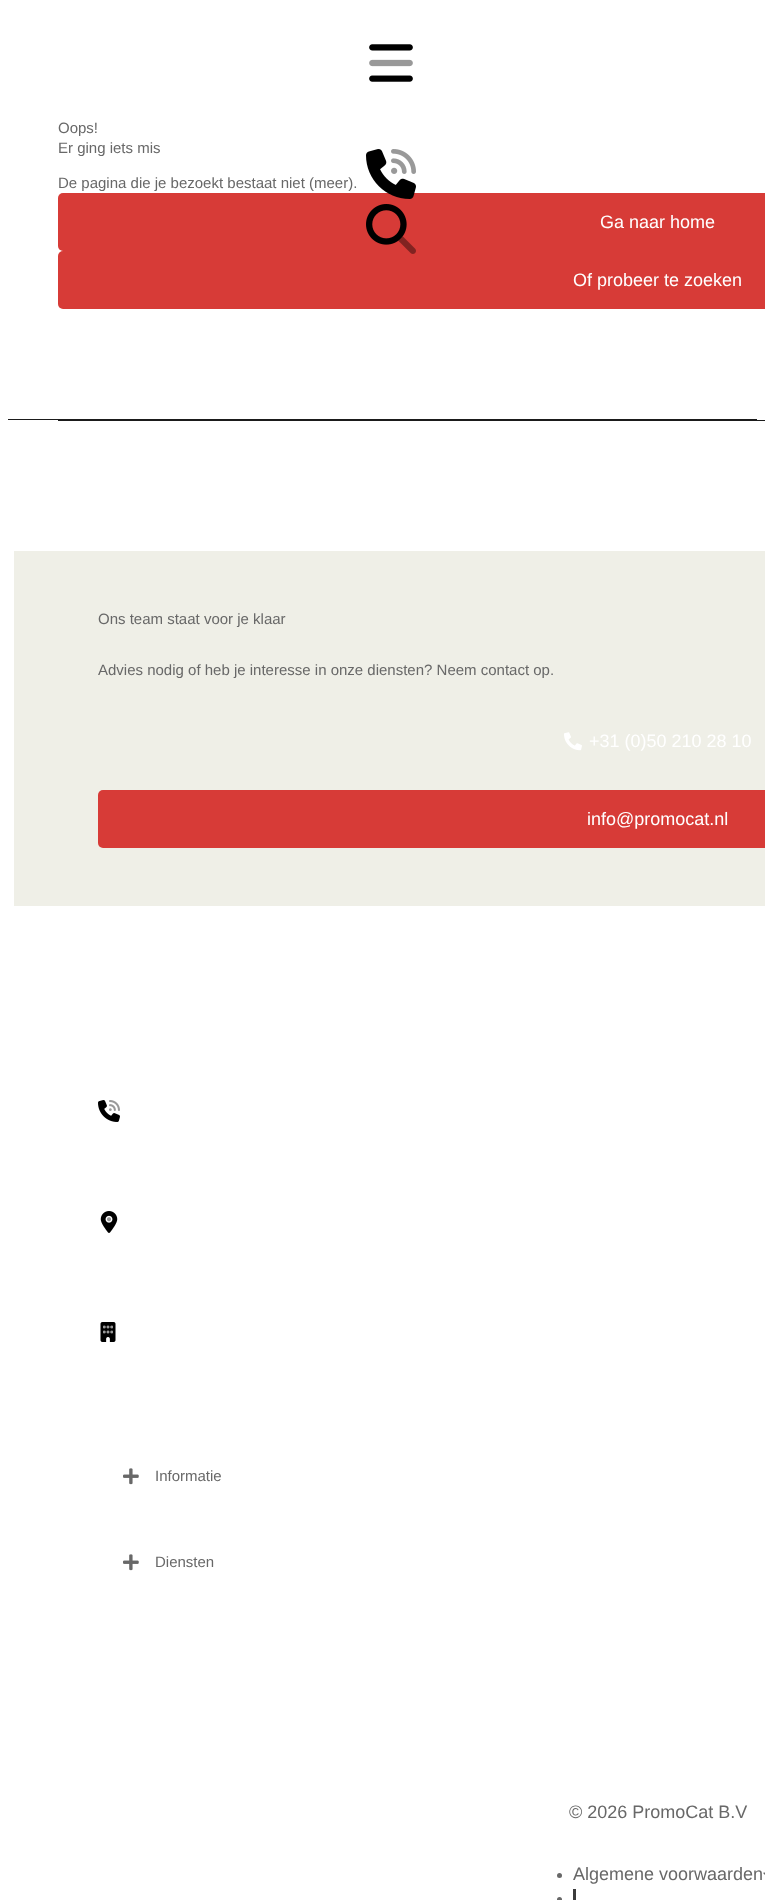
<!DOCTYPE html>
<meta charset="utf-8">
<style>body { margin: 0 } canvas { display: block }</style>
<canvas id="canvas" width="765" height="1900"></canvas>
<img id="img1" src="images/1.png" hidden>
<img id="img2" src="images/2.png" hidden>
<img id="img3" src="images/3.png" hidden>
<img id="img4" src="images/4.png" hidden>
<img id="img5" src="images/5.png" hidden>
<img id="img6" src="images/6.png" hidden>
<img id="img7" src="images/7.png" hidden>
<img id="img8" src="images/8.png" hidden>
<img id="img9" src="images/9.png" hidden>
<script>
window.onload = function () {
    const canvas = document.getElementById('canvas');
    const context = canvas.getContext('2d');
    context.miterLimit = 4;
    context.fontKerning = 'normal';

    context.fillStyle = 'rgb(255, 255, 255)';
    context.fillRect(0, 0, 765, 1900);
    context.drawImage(document.getElementById('img1'), 369, 44, 44, 38);
    context.fillStyle = 'rgb(215, 59, 55)';
    context.beginPath();
    context.roundRect(58, 193, 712, 58, 5);
    context.fill();
    context.drawImage(document.getElementById('img2'), 366, 149, 50, 50);
    context.beginPath();
    context.roundRect(58, 251, 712, 58, 5);
    context.fill();
    context.drawImage(document.getElementById('img3'), 366, 204, 50, 50);
    context.fillStyle = 'rgb(27, 27, 27)';
    context.fillRect(8, 419, 749, 1);
    context.fillRect(58, 420, 707, 1);
    context.fillStyle = 'rgb(239, 239, 231)';
    context.fillRect(14, 551, 751, 355);
    context.drawImage(document.getElementById('img4'), 564, 732, 18, 19);
    context.fillStyle = 'rgb(215, 59, 55)';
    context.beginPath();
    context.roundRect(98, 790, 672, 58, 5);
    context.fill();
    context.drawImage(document.getElementById('img5'), 98, 1100, 22, 22);
    context.drawImage(document.getElementById('img6'), 100, 1211, 18, 22);
    context.drawImage(document.getElementById('img7'), 100, 1322, 16, 20);
    context.drawImage(document.getElementById('img8'), 123, 1468, 16, 17);
    context.drawImage(document.getElementById('img8'), 123, 1554, 16, 17);
    context.fillStyle = 'rgb(104, 104, 104)';
    context.beginPath();
    context.arc(559.5, 1875.5, 2.5, 0, 2 * Math.PI);
    context.fill();
    context.drawImage(document.getElementById('img9'), 763, 1872, 2, 3);
    context.fillStyle = 'rgb(60, 60, 60)';
    context.fillRect(573, 1889, 3, 11);
    context.fillStyle = 'rgb(104, 104, 104)';
    context.beginPath();
    context.arc(559.5, 1899.5, 2.5, 0, 2 * Math.PI);
    context.fill();
    context.font = '15px Liberation Sans';
    context.fillText('Oops!', 58, 133);
    context.fillText('Er ging iets mis', 58, 153);
    context.fillText('De pagina die je bezoekt bestaat niet (meer).', 58, 188);
    context.font = '18px Liberation Sans';
    context.fillStyle = 'rgb(255, 255, 255)';
    context.fillText('Ga naar home', 600, 228);
    context.fillText('Of probeer te zoeken', 573, 286);
    context.font = '15px Liberation Sans';
    context.fillStyle = 'rgb(104, 104, 104)';
    context.fillText('Ons team staat voor je klaar', 98, 624);
    context.fillText('Advies nodig of heb je interesse in onze diensten? Neem contact op.', 98, 675);
    context.font = '18px Liberation Sans';
    context.fillStyle = 'rgb(255, 255, 255)';
    context.fillText('+31 (0)50 210 28 10', 589, 747);
    context.fillText('info@promocat.nl', 587, 825);
    context.font = '15px Liberation Sans';
    context.fillStyle = 'rgb(104, 104, 104)';
    context.fillText('Informatie', 155, 1481);
    context.fillText('Diensten', 155, 1567);
    context.font = '18px Liberation Sans';
    context.fillText('© 2026 PromoCat B.V', 569, 1818);
    context.fillText('Algemene voorwaarden', 573, 1880);
};
</script>
